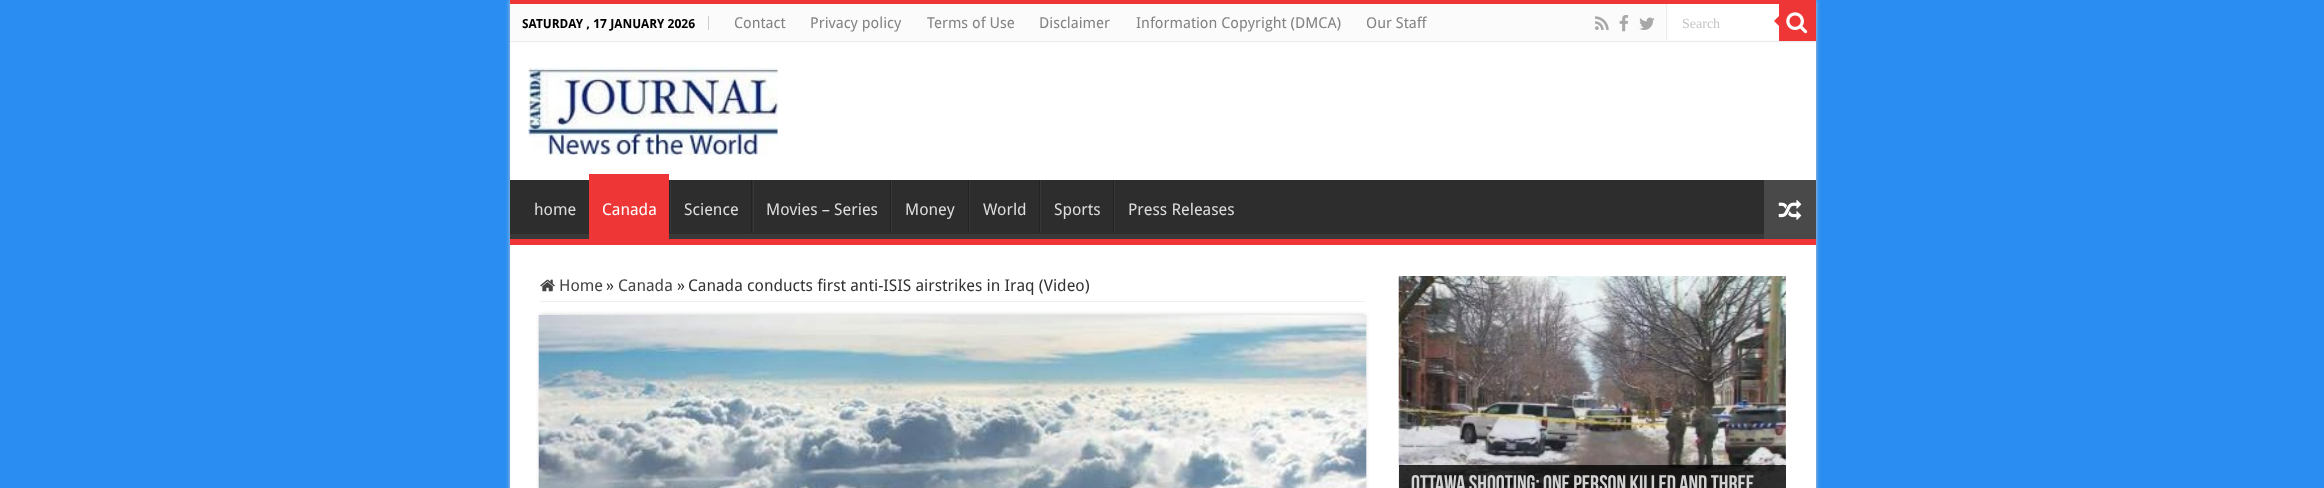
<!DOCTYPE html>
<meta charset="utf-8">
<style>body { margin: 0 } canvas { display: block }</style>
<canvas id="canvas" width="2324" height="488"></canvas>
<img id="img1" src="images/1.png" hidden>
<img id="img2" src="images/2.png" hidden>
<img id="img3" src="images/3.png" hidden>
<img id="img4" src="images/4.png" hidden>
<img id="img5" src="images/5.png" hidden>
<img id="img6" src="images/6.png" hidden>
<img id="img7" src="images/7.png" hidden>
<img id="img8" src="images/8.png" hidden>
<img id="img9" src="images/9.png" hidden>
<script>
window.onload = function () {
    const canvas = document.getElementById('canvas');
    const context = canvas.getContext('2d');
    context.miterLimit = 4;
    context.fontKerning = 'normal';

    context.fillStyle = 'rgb(41, 141, 242)';
    context.fillRect(0, 0, 2324, 488);
    context.fillStyle = 'rgb(202, 202, 202)';
    context.filter = 'blur(2px)';
    context.beginPath();
    context.rect(510, 0, 1306, 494);
    context.fill();
    context.filter = 'none';
    context.fillStyle = 'rgb(255, 255, 255)';
    context.fillRect(510, 43, 1306, 445);
    context.fillStyle = 'rgb(239, 54, 54)';
    context.fillRect(510, 0, 1306, 4);
    context.fillStyle = 'rgb(251, 251, 251)';
    context.fillRect(510, 4, 1306, 39);
    context.fillStyle = 'rgb(236, 236, 236)';
    context.fillRect(510, 41, 1306, 1);
    context.fillStyle = 'rgb(204, 204, 204)';
    context.fillRect(708, 16, 1, 14);
    context.drawImage(document.getElementById('img1'), 1595, 16, 14, 14);
    context.drawImage(document.getElementById('img2'), 1619, 15, 10, 17);
    context.drawImage(document.getElementById('img3'), 1639, 17, 16, 13);
    context.fillStyle = 'rgb(255, 255, 255)';
    context.fillRect(1668, 4, 111, 36);
    context.fillStyle = 'rgb(236, 236, 236)';
    context.fillRect(1666, 4, 1, 36);
    context.fillStyle = 'rgb(239, 54, 54)';
    context.fillRect(1779, 4, 37, 37);
    context.drawImage(document.getElementById('img4'), 1786, 12, 22, 22);
    context.beginPath();
    context.moveTo(1779, 16);
    context.lineTo(1779, 26);
    context.lineTo(1774, 21);
    context.closePath();
    context.fill();
    context.drawImage(document.getElementById('img5'), 528, 67, 250, 88);
    context.fillStyle = 'rgb(45, 45, 45)';
    context.fillRect(510, 180, 1254, 54);
    context.save();
    context.beginPath();
    context.rect(510, 180, 1306, 59);
    context.clip();
    context.fillStyle = 'rgb(57, 57, 57)';
    context.beginPath();
    context.moveTo(386, 56);
    context.lineTo(1940, 56);
    context.lineTo(1940, 362);
    context.lineTo(386, 362);
    context.closePath();
    context.moveTo(509, 172);
    context.lineTo(1815, 172);
    context.bezierCurveTo(1816, 172, 1816, 173, 1816, 174);
    context.lineTo(1816, 232);
    context.bezierCurveTo(1816, 233, 1816, 234, 1815, 234);
    context.lineTo(509, 234);
    context.bezierCurveTo(508, 234, 508, 233, 508, 232);
    context.lineTo(508, 174);
    context.bezierCurveTo(508, 173, 508, 172, 509, 172);
    context.closePath();
    context.fill('evenodd');
    context.restore();
    context.fillStyle = 'rgb(239, 54, 54)';
    context.fillRect(510, 239, 1306, 6);
    context.fillRect(589, 174, 80, 65);
    context.fillStyle = 'rgb(34, 34, 34)';
    context.fillRect(669, 180, 1, 53);
    context.fillStyle = 'rgb(56, 56, 56)';
    context.fillRect(670, 180, 1, 53);
    context.fillStyle = 'rgb(34, 34, 34)';
    context.fillRect(751, 180, 1, 53);
    context.fillStyle = 'rgb(56, 56, 56)';
    context.fillRect(753, 180, 1, 53);
    context.fillStyle = 'rgb(34, 34, 34)';
    context.fillRect(890, 180, 1, 53);
    context.fillStyle = 'rgb(56, 56, 56)';
    context.fillRect(891, 180, 1, 53);
    context.fillStyle = 'rgb(34, 34, 34)';
    context.fillRect(968, 180, 1, 53);
    context.fillStyle = 'rgb(56, 56, 56)';
    context.fillRect(969, 180, 1, 53);
    context.fillStyle = 'rgb(34, 34, 34)';
    context.fillRect(1039, 180, 1, 53);
    context.fillStyle = 'rgb(56, 56, 56)';
    context.fillRect(1040, 180, 1, 53);
    context.fillStyle = 'rgb(34, 34, 34)';
    context.fillRect(1113, 180, 1, 53);
    context.fillStyle = 'rgb(56, 56, 56)';
    context.fillRect(1114, 180, 1, 53);
    context.fillStyle = 'rgb(73, 73, 73)';
    context.fillRect(1764, 180, 52, 59);
    context.drawImage(document.getElementById('img6'), 1778, 199, 24, 21);
    context.fillStyle = 'rgb(238, 238, 238)';
    context.fillRect(540, 301, 825, 1);
    context.drawImage(document.getElementById('img7'), 540, 279, 15, 13);
    context.fillStyle = 'rgb(202, 202, 202)';
    context.filter = 'blur(2px)';
    context.beginPath();
    context.rect(540, 315, 825, 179);
    context.fill();
    context.filter = 'none';
    context.drawImage(document.getElementById('img8'), 538, 315, 829, 173);
    context.drawImage(document.getElementById('img9'), 1398, 276, 388, 212);
    context.fillStyle = 'rgba(0, 0, 0, 0.8)';
    context.fillRect(1399, 465, 387, 23);
    context.font = 'bold 12.5px Droid Sans';
    context.fillStyle = 'rgb(0, 0, 0)';
    context.fillText('SATURDAY , 17 JANUARY 2026', 522, 28);
    context.font = '15px Droid Sans';
    context.fillStyle = 'rgb(131, 131, 131)';
    context.fillText('Contact', 734, 28);
    context.fillText('Privacy policy', 810, 28);
    context.fillText('Terms of Use', 927, 28);
    context.fillText('Disclaimer', 1039, 28);
    context.fillText('Information Copyright (DMCA)', 1136, 28);
    context.fillText('Our Staff', 1366, 28);
    context.save();
    context.beginPath();
    context.rect(1683, 15, 81, 15);
    context.clip();
    context.font = '14px Liberation Serif';
    context.fillStyle = 'rgb(197, 197, 197)';
    context.fillText('Search', 1682, 28);
    context.restore();
    context.font = '16.25px Droid Sans';
    context.fillStyle = 'rgb(221, 221, 221)';
    context.fillText('home', 534, 215);
    context.fillStyle = 'rgb(255, 255, 255)';
    context.fillText('Canada', 602, 215);
    context.fillStyle = 'rgb(221, 221, 221)';
    context.fillText('Science', 684, 215);
    context.fillText('Movies – Series', 766, 215);
    context.fillText('Money', 905, 215);
    context.fillText('World', 983, 215);
    context.fillText('Sports', 1054, 215);
    context.fillText('Press Releases', 1128, 215);
    context.fillStyle = 'rgb(68, 68, 68)';
    context.fillText('Home', 559, 291);
    context.fillStyle = 'rgb(51, 51, 51)';
    context.fillText('»', 606, 291);
    context.fillStyle = 'rgb(68, 68, 68)';
    context.fillText('Canada', 618, 291);
    context.fillStyle = 'rgb(51, 51, 51)';
    context.fillText('»', 677, 291);
    context.fillText('Canada conducts first anti-ISIS airstrikes in Iraq (Video)', 688, 291);
    context.font = 'bold 22.5px Bebas Neue';
    context.fillStyle = 'rgb(210, 210, 210)';
    context.fillText('Ottawa shooting: One person killed and three', 1411, 491);
};
</script>
